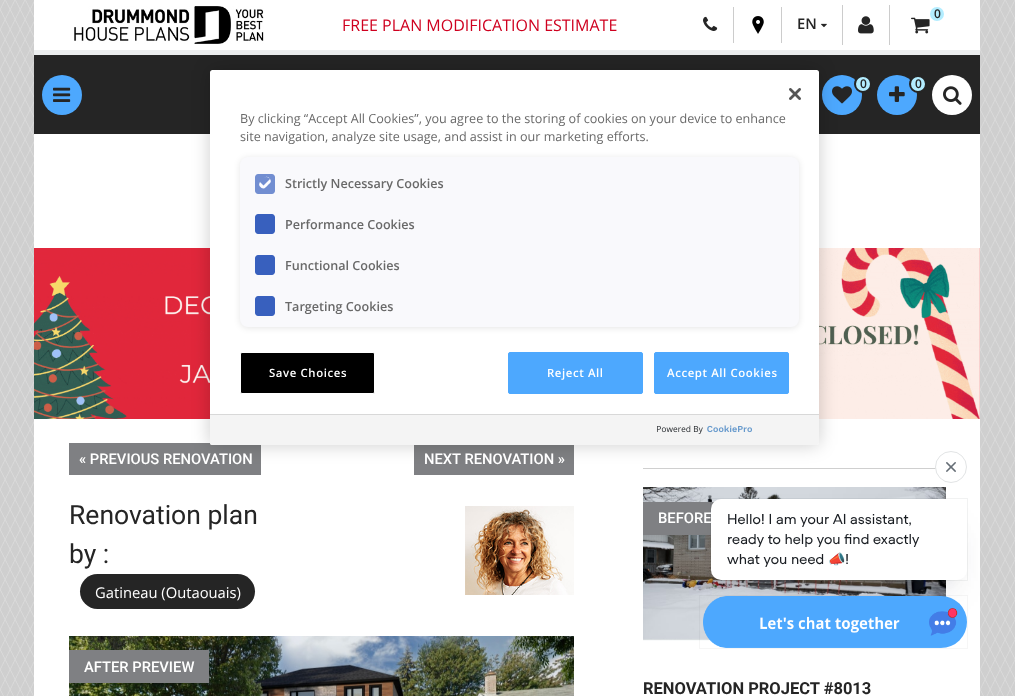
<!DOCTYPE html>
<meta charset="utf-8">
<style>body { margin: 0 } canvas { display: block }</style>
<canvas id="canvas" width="1015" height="696"></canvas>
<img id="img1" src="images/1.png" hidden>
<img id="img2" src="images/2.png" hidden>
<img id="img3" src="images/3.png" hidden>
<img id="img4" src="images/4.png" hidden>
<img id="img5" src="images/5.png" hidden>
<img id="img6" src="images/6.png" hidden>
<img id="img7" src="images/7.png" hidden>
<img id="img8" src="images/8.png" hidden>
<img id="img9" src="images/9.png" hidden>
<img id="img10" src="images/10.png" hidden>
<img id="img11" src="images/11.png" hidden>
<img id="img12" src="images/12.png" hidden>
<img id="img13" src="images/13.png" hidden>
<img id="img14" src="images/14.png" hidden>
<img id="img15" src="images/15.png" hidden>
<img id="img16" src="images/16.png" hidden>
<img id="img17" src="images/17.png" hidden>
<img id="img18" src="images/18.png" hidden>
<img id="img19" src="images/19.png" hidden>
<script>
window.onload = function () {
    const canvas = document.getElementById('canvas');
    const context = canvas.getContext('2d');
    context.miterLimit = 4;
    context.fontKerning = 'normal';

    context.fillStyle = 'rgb(255, 255, 255)';
    context.fillRect(0, 0, 1015, 696);
    context.drawImage(document.getElementById('img1'), 0, 0, 1015, 696);
    context.fillRect(34, 0, 946, 50);
    context.fillStyle = 'rgb(236, 238, 239)';
    context.fillRect(34, 50, 946, 5);
    context.drawImage(document.getElementById('img2'), 74, 6, 190, 38);
    context.fillStyle = 'rgb(204, 204, 204)';
    context.fillRect(889, 5, 1, 40);
    context.fillRect(842, 5, 1, 40);
    context.drawImage(document.getElementById('img3'), 858, 16, 16, 18);
    context.drawImage(document.getElementById('img4'), 911, 17, 19, 17);
    context.fillStyle = 'rgb(179, 237, 255)';
    context.beginPath();
    context.arc(937, 14, 8, 0, 2 * Math.PI);
    context.fill();
    context.strokeStyle = 'rgb(255, 255, 255)';
    context.lineWidth = 2;
    context.stroke();
    context.drawImage(document.getElementById('img5'), 703, 16, 15, 15);
    context.fillStyle = 'rgb(204, 204, 204)';
    context.fillRect(733, 7, 1, 36);
    context.drawImage(document.getElementById('img6'), 752, 16, 12, 18);
    context.fillRect(781, 7, 1, 36);
    context.drawImage(document.getElementById('img7'), 821, 23, 6, 5);
    context.fillStyle = 'rgb(37, 37, 37)';
    context.fillRect(34, 55, 946, 79);
    context.fillStyle = 'rgb(77, 168, 254)';
    context.beginPath();
    context.arc(62, 95, 20, 0, 2 * Math.PI);
    context.fill();
    context.drawImage(document.getElementById('img8'), 53, 87, 18, 15);
    context.beginPath();
    context.arc(842, 95, 20, 0, 2 * Math.PI);
    context.fill();
    context.drawImage(document.getElementById('img9'), 832, 86, 20, 18);
    context.fillStyle = 'rgb(179, 237, 255)';
    context.beginPath();
    context.arc(863, 84, 8, 0, 2 * Math.PI);
    context.fill();
    context.strokeStyle = 'rgb(37, 37, 37)';
    context.stroke();
    context.fillStyle = 'rgb(77, 168, 254)';
    context.beginPath();
    context.arc(897, 95, 20, 0, 2 * Math.PI);
    context.fill();
    context.drawImage(document.getElementById('img10'), 889, 86, 16, 16);
    context.fillStyle = 'rgb(179, 237, 255)';
    context.beginPath();
    context.arc(918, 84, 8, 0, 2 * Math.PI);
    context.fill();
    context.stroke();
    context.fillStyle = 'rgb(255, 255, 255)';
    context.beginPath();
    context.arc(952, 95, 20, 0, 2 * Math.PI);
    context.fill();
    context.drawImage(document.getElementById('img11'), 943, 86, 19, 19);
    context.fillRect(34, 134, 946, 114);
    context.drawImage(document.getElementById('img12'), 34, 248, 946, 171);
    context.fillRect(34, 419, 946, 277);
    context.fillStyle = 'rgb(127, 128, 131)';
    context.fillRect(69, 443, 192, 32);
    context.fillRect(414, 445, 160, 30);
    context.fillStyle = 'rgb(37, 37, 37)';
    context.beginPath();
    context.roundRect(80, 574, 175, 35, 17.5);
    context.fill();
    context.drawImage(document.getElementById('img13'), 465, 506, 109, 89);
    context.drawImage(document.getElementById('img14'), 69, 636, 505, 60);
    context.fillStyle = 'rgb(127, 128, 131)';
    context.fillRect(69, 650, 140, 33);
    context.fillStyle = 'rgb(207, 207, 207)';
    context.fillRect(643, 468, 293, 1);
    context.drawImage(document.getElementById('img15'), 643, 487, 303, 154);
    context.fillStyle = 'rgb(127, 128, 131)';
    context.fillRect(643, 502, 71, 33);
    context.fillStyle = 'rgba(0, 0, 0, 0.2)';
    context.filter = 'blur(9px)';
    context.beginPath();
    context.roundRect(210, 70, 609, 375, 2.5);
    context.fill();
    context.filter = 'none';
    context.fillStyle = 'rgb(255, 255, 255)';
    context.beginPath();
    context.roundRect(210, 70, 609, 375, 2.5);
    context.fill();
    context.drawImage(document.getElementById('img16'), 789, 88, 12, 12);
    context.fillStyle = 'rgba(0, 0, 0, 0.1)';
    context.filter = 'blur(3px)';
    context.beginPath();
    context.roundRect(240, 158, 559, 170, 8);
    context.fill();
    context.filter = 'none';
    context.fillStyle = 'rgb(249, 249, 252)';
    context.beginPath();
    context.roundRect(240, 157, 559, 170, 8);
    context.fill();
    context.fillStyle = 'rgb(114, 142, 209)';
    context.beginPath();
    context.moveTo(258, 174);
    context.lineTo(272, 174);
    context.bezierCurveTo(273.5, 174, 275, 175.5, 275, 177);
    context.lineTo(275, 191);
    context.bezierCurveTo(275, 192.5, 273.5, 194, 272, 194);
    context.lineTo(258, 194);
    context.bezierCurveTo(256.5, 194, 255, 192.5, 255, 191);
    context.lineTo(255, 177);
    context.bezierCurveTo(255, 175.5, 256.5, 174, 258, 174);
    context.closePath();
    context.fill();
    context.fillStyle = 'rgb(253, 253, 254)';
    context.beginPath();
    context.moveTo(260, 182);
    context.bezierCurveTo(263, 179, 265, 175, 269, 178);
    context.lineTo(270, 179);
    context.lineTo(263.5, 185.5);
    context.closePath();
    context.moveTo(270, 179);
    context.bezierCurveTo(269, 177.5, 267.5, 176.5, 266, 177);
    context.bezierCurveTo(264.5, 177, 260, 181.5, 259.5, 183);
    context.bezierCurveTo(259, 184, 259, 185, 259.5, 186);
    context.lineTo(261.5, 188);
    context.bezierCurveTo(264.5, 189.5, 266, 187, 268, 185);
    context.bezierCurveTo(270, 183, 272, 182, 270, 179);
    context.closePath();
    context.fill('evenodd');
    context.fillStyle = 'rgb(56, 96, 190)';
    context.beginPath();
    context.moveTo(258, 214);
    context.lineTo(272, 214);
    context.bezierCurveTo(273.5, 214, 275, 215.5, 275, 217);
    context.lineTo(275, 231);
    context.bezierCurveTo(275, 232.5, 273.5, 234, 272, 234);
    context.lineTo(258, 234);
    context.bezierCurveTo(256.5, 234, 255, 232.5, 255, 231);
    context.lineTo(255, 217);
    context.bezierCurveTo(255, 215.5, 256.5, 214, 258, 214);
    context.closePath();
    context.moveTo(258, 255);
    context.lineTo(272, 255);
    context.bezierCurveTo(273.5, 255, 275, 256.5, 275, 258);
    context.lineTo(275, 272);
    context.bezierCurveTo(275, 273.5, 273.5, 275, 272, 275);
    context.lineTo(258, 275);
    context.bezierCurveTo(256.5, 275, 255, 273.5, 255, 272);
    context.lineTo(255, 258);
    context.bezierCurveTo(255, 256.5, 256.5, 255, 258, 255);
    context.closePath();
    context.fill();
    context.beginPath();
    context.moveTo(258, 296);
    context.lineTo(272, 296);
    context.bezierCurveTo(273.5, 296, 275, 297.5, 275, 299);
    context.lineTo(275, 313);
    context.bezierCurveTo(275, 314.5, 273.5, 316, 272, 316);
    context.lineTo(258, 316);
    context.bezierCurveTo(256.5, 316, 255, 314.5, 255, 313);
    context.lineTo(255, 299);
    context.bezierCurveTo(255, 297.5, 256.5, 296, 258, 296);
    context.closePath();
    context.fill();
    context.fillStyle = 'rgb(0, 0, 0)';
    context.beginPath();
    context.roundRect(240.5, 352.5, 134, 41, 1.5);
    context.fill();
    context.strokeStyle = 'rgb(255, 255, 255)';
    context.lineWidth = 1;
    context.stroke();
    context.fillStyle = 'rgb(77, 168, 254)';
    context.beginPath();
    context.roundRect(508.5, 352.5, 134, 41, 1.5);
    context.fill();
    context.strokeStyle = 'rgb(77, 168, 254)';
    context.stroke();
    context.beginPath();
    context.roundRect(654.5, 352.5, 134, 41, 1.5);
    context.fill();
    context.stroke();
    context.fillStyle = 'rgb(244, 244, 244)';
    context.beginPath();
    context.roundRect(210, 414, 609, 31, [0, 0, 2.5, 2.5]);
    context.fill();
    context.fillStyle = 'rgb(216, 216, 216)';
    context.fillRect(210, 414, 609, 1);
    context.drawImage(document.getElementById('img17'), 657, 425, 95, 9);
    context.fillStyle = 'rgb(255, 255, 255)';
    context.beginPath();
    context.arc(951, 467, 15.5, 0, 2 * Math.PI);
    context.fill();
    context.strokeStyle = 'rgb(226, 228, 229)';
    context.stroke();
    context.drawImage(document.getElementById('img18'), 946, 462, 10, 10);
    context.fillStyle = 'rgba(22, 26, 30, 0.12)';
    context.filter = 'blur(22px)';
    context.beginPath();
    context.rect(729, 537, 220, 45);
    context.fill();
    context.filter = 'none';
    context.filter = 'blur(14px)';
    context.beginPath();
    context.rect(729, 533, 220, 45);
    context.fill();
    context.filter = 'none';
    context.fillStyle = 'rgba(22, 26, 30, 0.08)';
    context.filter = 'blur(10px)';
    context.beginPath();
    context.rect(729, 529, 220, 45);
    context.fill();
    context.filter = 'none';
    context.strokeStyle = 'rgba(22, 26, 30, 0.04)';
    context.strokeRect(699.5, 595.5, 268, 53);
    context.drawImage(document.getElementById('img19'), 703, 596, 264, 52);
    context.font = '16px Open Sans';
    context.fillStyle = 'rgb(207, 0, 31)';
    context.fillText('FREE PLAN MODIFICATION ESTIMATE', 342, 31);
    context.font = '600 12px Open Sans';
    context.fillStyle = 'rgb(37, 37, 37)';
    context.fillText('0', 934, 18);
    context.font = '600 14.75px Open Sans';
    context.fillText('EN', 797, 29);
    context.font = '600 12px Open Sans';
    context.fillText('0', 860, 88);
    context.fillText('0', 915, 88);
    context.font = '500 14.75px Roboto';
    context.fillStyle = 'rgb(255, 255, 255)';
    context.fillText('« PREVIOUS RENOVATION', 79, 464);
    context.fillText('NEXT RENOVATION »', 424, 464);
    context.font = '26.5px Roboto';
    context.fillStyle = 'rgb(37, 37, 37)';
    context.fillText('Renovation plan', 69, 524);
    context.fillText('by :', 69, 563);
    context.font = '14.75px Open Sans';
    context.fillStyle = 'rgb(255, 255, 255)';
    context.fillText('Gatineau (Outaouais)', 95, 598);
    context.font = '500 14.75px Roboto';
    context.fillText('AFTER PREVIEW', 84, 672);
    context.fillText('BEFORE', 658, 523);
    context.font = 'bold 16.5px Roboto';
    context.fillStyle = 'rgb(37, 37, 37)';
    context.fillText('RENOVATION PROJECT #8013', 643, 694);
    context.font = '12.6px Open Sans';
    context.fillStyle = 'rgb(105, 105, 105)';
    context.fillText('By clicking “Accept All Cookies”, you agree to the storing of cookies on your device to enhance', 240, 123);
    context.fillText('site navigation, analyze site usage, and assist in our marketing efforts.', 240, 141);
    context.font = '600 12.6px Open Sans';
    context.fillText('Strictly Necessary Cookies', 285, 188);
    context.fillText('Performance Cookies', 285, 229);
    context.fillText('Functional Cookies', 285, 270);
    context.fillText('Targeting Cookies', 285, 311);
    context.letterSpacing = '0.6px';
    context.font = '600 11.4px Open Sans';
    context.fillStyle = 'rgb(255, 255, 255)';
    context.fillText('Save Choices', 269, 377);
    context.fillText('Reject All', 547, 377);
    context.fillText('Accept All Cookies', 667, 377);
    context.strokeStyle = 'rgba(22, 26, 30, 0.06)';
    context.strokeRect(710.5, 498.5, 257, 82);
    context.beginPath();
    context.roundRect(711, 499, 256, 81, 10);
    context.fill();
    context.letterSpacing = '0px';
    context.font = '14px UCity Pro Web';
    context.fillStyle = 'rgb(26, 30, 35)';
    context.fillText('Hello! I am your AI assistant,', 727, 524);
    context.fillText('ready to help you find exactly', 727, 544);
    context.fillText('what you need', 727, 564);
    context.font = '14px Noto Color Emoji';
    context.fillText('📣', 828, 564);
    context.font = '14px UCity Pro Web';
    context.fillText('!', 845, 564);
};
</script>
